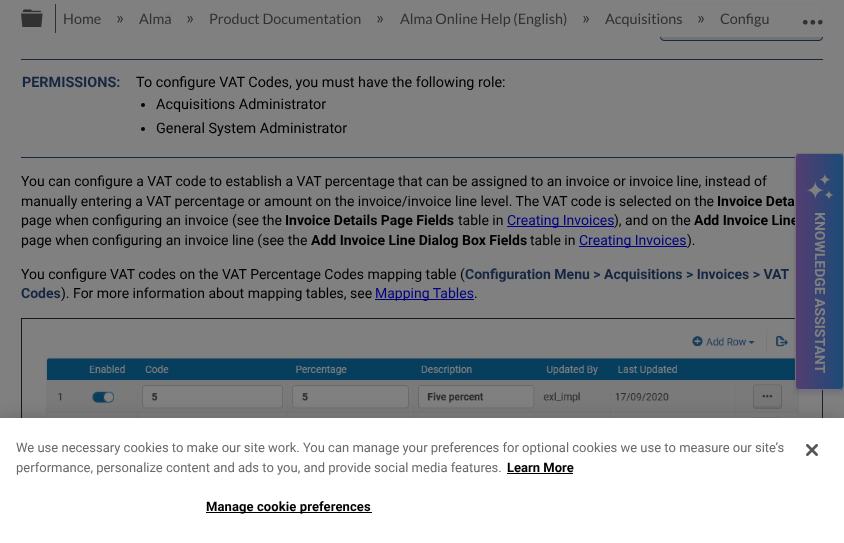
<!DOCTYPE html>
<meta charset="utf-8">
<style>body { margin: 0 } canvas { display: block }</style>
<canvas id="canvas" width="844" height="543"></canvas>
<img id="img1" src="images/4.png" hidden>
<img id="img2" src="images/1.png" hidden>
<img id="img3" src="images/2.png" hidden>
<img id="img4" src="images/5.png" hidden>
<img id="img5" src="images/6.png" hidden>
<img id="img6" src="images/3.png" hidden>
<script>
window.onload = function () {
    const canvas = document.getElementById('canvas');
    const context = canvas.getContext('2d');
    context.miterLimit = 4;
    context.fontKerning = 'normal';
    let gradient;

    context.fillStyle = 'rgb(128, 128, 128)';
    context.fillRect(0, 0, 844, 543);
    context.fillStyle = 'rgb(64, 64, 64)';
    context.fillRect(432, 3, 1, 23);
    context.fillStyle = 'rgb(47, 46, 49)';
    context.beginPath();
    context.moveTo(171.5, 11);
    context.lineTo(171.5, 20.5);
    context.lineTo(163, 16);
    context.closePath();
    context.fill();
    context.beginPath();
    context.moveTo(632, 11);
    context.lineTo(632, 20.5);
    context.lineTo(640.5, 16);
    context.closePath();
    context.fill();
    context.fillStyle = 'rgb(114, 114, 114)';
    context.beginPath();
    context.roundRect(660.5, 3.5, 162, 37, 3.5);
    context.fill();
    context.strokeStyle = 'rgb(22, 39, 65)';
    context.stroke();
    context.drawImage(document.getElementById('img1'), 675, 17, 11, 11);
    context.fillStyle = 'rgba(128, 128, 128, 0.97)';
    context.fillRect(163, 3, 660, 34);
    context.drawImage(document.getElementById('img2'), 21, 9, 22, 18);
    context.fillStyle = 'rgb(49, 49, 51)';
    context.fillRect(55, 4, 1, 29);
    context.drawImage(document.getElementById('img3'), 802, 19, 21, 6);
    context.fillStyle = 'rgb(22, 39, 65)';
    context.fillRect(21, 157, 774, 1);
    context.drawImage(document.getElementById('img4'), 21, 318, 802, 100);
    context.fillStyle = 'rgba(66, 60, 115, 0.2)';
    context.filter = 'blur(2px)';
    context.beginPath();
    context.roundRect(795, 157, 49, 237, 4);
    context.fill();
    context.filter = 'none';
    context.fillStyle = 'rgb(22, 39, 65)';
    context.fillRect(21, 59, 802, 1);
    context.fillStyle = 'rgb(0, 0, 0)';
    context.beginPath();
    context.arc(143, 105, 2, 0, 2 * Math.PI);
    context.fill();
    context.beginPath();
    context.arc(143, 129, 2, 0, 2 * Math.PI);
    context.fill();
    context.fillStyle = 'rgb(0, 0, 128)';
    context.fillRect(507, 226, 107, 1);
    context.fillRect(579, 246, 108, 1);
    context.fillRect(375, 299, 99, 1);
    context.fillStyle = 'rgba(0, 0, 0, 0.2)';
    context.filter = 'blur(9px)';
    context.beginPath();
    context.rect(0, 418, 844, 125);
    context.fill();
    context.filter = 'none';
    context.fillStyle = 'rgb(255, 255, 255)';
    context.fillRect(0, 418, 844, 125);
    context.fillStyle = 'rgb(0, 0, 0)';
    context.fillRect(507, 473, 66, 1);
    context.fillRect(206, 512, 166, 1);
    context.drawImage(document.getElementById('img5'), 806, 444, 12, 12);
    context.font = '14.4px Lato';
    context.fillStyle = 'rgb(49, 49, 51)';
    context.fillText('Home', 63, 24);
    context.font = '18px Lato';
    context.fillText('»', 116, 24);
    context.font = '14.4px Lato';
    context.fillText('Alma', 139, 24);
    context.font = '18px Lato';
    context.fillText('»', 186, 24);
    context.font = '14.4px Lato';
    context.fillText('Product Documentation', 209, 24);
    context.font = '18px Lato';
    context.fillText('»', 376, 24);
    context.font = '14.4px Lato';
    context.fillText('Alma Online Help (English)', 400, 24);
    context.font = '18px Lato';
    context.fillText('»', 582, 24);
    context.font = '14.4px Lato';
    context.fillText('Acquisitions', 605, 24);
    context.font = '18px Lato';
    context.fillText('»', 697, 24);
    context.font = '14.4px Lato';
    context.fillText('Configu', 720, 24);
    context.font = 'bold 14.4px Roboto';
    context.fillStyle = 'rgb(22, 39, 65)';
    context.fillText('PERMISSIONS:', 22, 87);
    context.font = '14.4px Roboto';
    context.fillStyle = 'rgb(0, 0, 0)';
    context.fillText('To configure VAT Codes, you must have the following role:', 136, 87);
    context.fillText('Acquisitions Administrator', 156, 109);
    context.fillText('General System Administrator', 156, 133);
    context.font = '14px Roboto';
    context.fillText('You can configure a VAT code to establish a VAT percentage that can be assigned to an invoice or invoice line, instead of', 21, 186);
    context.fillText('manually entering a VAT percentage or amount on the invoice/invoice line level. The VAT code is selected on the', 21, 206);
    context.font = 'bold 14px Roboto';
    context.fillText('Invoice Deta', 717, 206);
    context.font = '14px Roboto';
    context.fillText('page when configuring an invoice (see the', 21, 225);
    context.font = 'bold 14px Roboto';
    context.fillText('Invoice Details Page Fields', 285, 225);
    context.font = '14px Roboto';
    context.fillText('table in', 458, 225);
    context.fillStyle = 'rgb(0, 0, 128)';
    context.fillText('Creating Invoices', 507, 225);
    context.fillStyle = 'rgb(0, 0, 0)';
    context.fillText('), and on the', 614, 225);
    context.font = 'bold 14px Roboto';
    context.fillText('Add Invoice Line', 694, 225);
    context.save();
    context.beginPath();
    context.roundRect(795, 153, 49, 237, 4);
    context.clip();
    gradient = context.createLinearGradient(796, 272, 843, 272);
    gradient.addColorStop(0, 'rgb(84, 61, 112)');
    gradient.addColorStop(1, 'rgb(27, 75, 120)');
    context.fillStyle = gradient;
    context.fillRect(796, 153, 47, 237);
    context.restore();
    context.beginPath();
    context.roundRect(795.5, 153.5, 48, 236, 3.5);
    context.strokeStyle = 'rgb(114, 114, 114)';
    context.stroke();
    context.drawImage(document.getElementById('img6'), 806, 173, 28, 27);
    context.fillStyle = 'rgb(128, 128, 128)';
    context.save();
    context.translate(815, 212);
    context.rotate(90 * Math.PI / 180);
    context.fillText('KNOWLEDGE ASSISTANT', 0, 0);
    context.restore();
    context.font = '14px Roboto';
    context.fillStyle = 'rgb(0, 0, 0)';
    context.fillText('page when configuring an invoice line (see the', 21, 245);
    context.font = 'bold 14px Roboto';
    context.fillText('Add Invoice Line Dialog Box Fields', 311, 245);
    context.font = '14px Roboto';
    context.fillText('table in', 530, 245);
    context.fillStyle = 'rgb(0, 0, 128)';
    context.fillText('Creating Invoices', 579, 245);
    context.fillStyle = 'rgb(0, 0, 0)';
    context.fillText(').', 687, 245);
    context.fillText('You configure VAT codes on the VAT Percentage Codes mapping table (', 21, 279);
    context.font = 'bold 14px Roboto';
    context.fillStyle = 'rgb(22, 39, 65)';
    context.fillText('Configuration Menu > Acquisitions > Invoices > VAT', 465, 279);
    context.fillText('Codes', 21, 298);
    context.font = '14px Roboto';
    context.fillStyle = 'rgb(0, 0, 0)';
    context.fillText('). For more information about mapping tables, see', 61, 298);
    context.fillStyle = 'rgb(0, 0, 128)';
    context.fillText('Mapping Tables', 375, 298);
    context.fillStyle = 'rgb(0, 0, 0)';
    context.fillText('.', 474, 298);
    context.font = '13px Roboto';
    context.fillStyle = 'rgb(105, 105, 105)';
    context.fillText('We use necessary cookies to make our site work. You can manage your preferences for optional cookies we use to measure our site’s', 16, 452);
    context.fillText('performance, personalize content and ads to you, and provide social media features.', 16, 472);
    context.font = 'bold 13px Roboto';
    context.fillStyle = 'rgb(0, 0, 0)';
    context.fillText('Learn More', 507, 472);
    context.letterSpacing = '0.1px';
    context.fillText('Manage cookie preferences', 206, 511);
};
</script>
